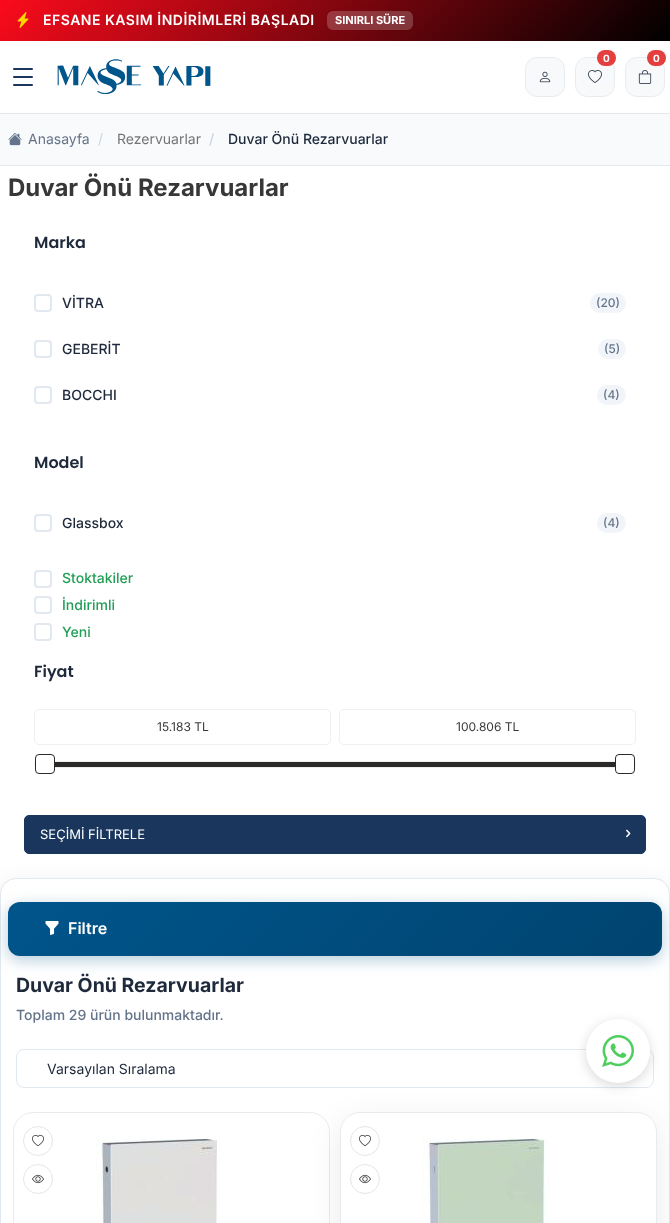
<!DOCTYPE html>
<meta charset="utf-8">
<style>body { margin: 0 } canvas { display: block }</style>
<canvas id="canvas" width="670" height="1223"></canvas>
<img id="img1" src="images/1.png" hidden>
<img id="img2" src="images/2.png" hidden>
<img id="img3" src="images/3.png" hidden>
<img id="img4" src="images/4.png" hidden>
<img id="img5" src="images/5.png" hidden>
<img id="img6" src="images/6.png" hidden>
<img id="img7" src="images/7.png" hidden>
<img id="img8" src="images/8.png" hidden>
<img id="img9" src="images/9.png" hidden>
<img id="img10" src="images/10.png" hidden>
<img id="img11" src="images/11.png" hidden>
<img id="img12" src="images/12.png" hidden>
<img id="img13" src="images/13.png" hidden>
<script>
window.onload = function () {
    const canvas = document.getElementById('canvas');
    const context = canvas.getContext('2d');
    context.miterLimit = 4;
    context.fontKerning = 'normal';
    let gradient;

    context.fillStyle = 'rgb(255, 255, 255)';
    context.fillRect(0, 0, 670, 1223);
    gradient = context.createLinearGradient(157, -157, 513, 198);
    gradient.addColorStop(0, 'rgb(251, 11, 28)');
    gradient.addColorStop(1, 'rgb(0, 0, 0)');
    context.fillStyle = gradient;
    context.fillRect(0, 0, 670, 41);
    context.drawImage(document.getElementById('img1'), 17, 12, 12, 16);
    context.fillStyle = 'rgba(255, 255, 255, 0.2)';
    context.beginPath();
    context.roundRect(327, 11, 86, 19, 6);
    context.fill();
    context.fillStyle = 'rgb(229, 231, 235)';
    context.fillRect(0, 113, 670, 1);
    context.fillStyle = 'rgb(26, 54, 93)';
    context.beginPath();
    context.roundRect(13, 68, 20, 2, 1);
    context.fill();
    context.beginPath();
    context.roundRect(13, 76, 20, 2, 1);
    context.fill();
    context.beginPath();
    context.roundRect(13, 84, 20, 2, 1);
    context.fill();
    context.drawImage(document.getElementById('img2'), 57, 59, 154, 35);
    context.fillStyle = 'rgb(248, 249, 250)';
    context.beginPath();
    context.roundRect(525.5, 57.5, 39, 39, 11.5);
    context.fill();
    context.strokeStyle = 'rgb(233, 236, 239)';
    context.stroke();
    context.drawImage(document.getElementById('img3'), 539, 71, 12, 12);
    context.beginPath();
    context.roundRect(575.5, 57.5, 39, 39, 11.5);
    context.fill();
    context.stroke();
    context.fillStyle = 'rgb(229, 62, 62)';
    context.beginPath();
    context.roundRect(597, 50, 19, 16, 8);
    context.fill();
    context.drawImage(document.getElementById('img4'), 588, 70, 14, 13);
    context.fillStyle = 'rgb(248, 249, 250)';
    context.beginPath();
    context.roundRect(625.5, 57.5, 39, 39, 11.5);
    context.fill();
    context.stroke();
    context.fillStyle = 'rgb(229, 62, 62)';
    context.beginPath();
    context.roundRect(647, 50, 19, 16, 8);
    context.fill();
    context.drawImage(document.getElementById('img5'), 638, 70, 14, 14);
    context.fillStyle = 'rgb(248, 250, 252)';
    context.fillRect(0, 114, 670, 51);
    context.fillStyle = 'rgb(226, 232, 240)';
    context.fillRect(0, 165, 670, 1);
    context.drawImage(document.getElementById('img6'), 8, 133, 14, 13);
    context.beginPath();
    context.roundRect(35, 295, 16, 16, 3);
    context.strokeStyle = 'rgb(226, 232, 240)';
    context.lineWidth = 2;
    context.stroke();
    context.fillStyle = 'rgb(241, 245, 249)';
    context.beginPath();
    context.roundRect(590, 293, 36, 20, 10);
    context.fill();
    context.beginPath();
    context.roundRect(35, 341, 16, 16, 3);
    context.stroke();
    context.beginPath();
    context.roundRect(598, 339, 28, 20, 10);
    context.fill();
    context.beginPath();
    context.roundRect(35, 387, 16, 16, 3);
    context.stroke();
    context.beginPath();
    context.roundRect(597, 385, 29, 20, 10);
    context.fill();
    context.beginPath();
    context.roundRect(35, 515, 16, 16, 3);
    context.stroke();
    context.beginPath();
    context.roundRect(597, 513, 29, 20, 10);
    context.fill();
    context.beginPath();
    context.roundRect(35, 571, 16, 16, 3);
    context.stroke();
    context.beginPath();
    context.roundRect(35, 597, 16, 16, 3);
    context.stroke();
    context.beginPath();
    context.roundRect(35, 624, 16, 16, 3);
    context.stroke();
    context.beginPath();
    context.roundRect(34.5, 709.5, 296, 35, 4.5);
    context.strokeStyle = 'rgb(240, 240, 240)';
    context.lineWidth = 1;
    context.stroke();
    context.beginPath();
    context.roundRect(339.5, 709.5, 296, 35, 4.5);
    context.stroke();
    context.beginPath();
    context.roundRect(34.5, 761.5, 601, 6, 3);
    context.stroke();
    context.fillStyle = 'rgb(44, 42, 40)';
    context.fillRect(55, 762, 560, 5);
    context.fillStyle = 'rgb(255, 255, 255)';
    context.beginPath();
    context.roundRect(35.5, 754.5, 19, 19, 3.5);
    context.fill();
    context.strokeStyle = 'rgb(44, 42, 40)';
    context.stroke();
    context.beginPath();
    context.roundRect(615.5, 754.5, 19, 19, 3.5);
    context.fill();
    context.stroke();
    context.fillStyle = 'rgba(0, 0, 0, 0.08)';
    context.filter = 'blur(10px)';
    context.beginPath();
    context.roundRect(0, 882, 670, 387, 16);
    context.fill();
    context.filter = 'none';
    context.fillStyle = 'rgb(26, 54, 93)';
    context.beginPath();
    context.roundRect(24.5, 815.5, 621, 38, 4.5);
    context.fill();
    context.strokeStyle = 'rgb(26, 54, 93)';
    context.stroke();
    context.drawImage(document.getElementById('img7'), 626, 829, 5, 9);
    context.fillStyle = 'rgb(255, 255, 255)';
    context.beginPath();
    context.roundRect(0.5, 878.5, 669, 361, 15.5);
    context.fill();
    context.strokeStyle = 'rgb(226, 232, 240)';
    context.stroke();
    context.fillStyle = 'rgba(0, 85, 139, 0.3)';
    context.filter = 'blur(7.5px)';
    context.beginPath();
    context.roundRect(8, 906, 654, 54, 12);
    context.fill();
    context.filter = 'none';
    gradient = context.createLinearGradient(158, 752, 512, 1106);
    gradient.addColorStop(0, 'rgb(0, 85, 139)');
    gradient.addColorStop(1, 'rgb(0, 68, 112)');
    context.fillStyle = gradient;
    context.beginPath();
    context.roundRect(8, 902, 654, 54, 12);
    context.fill();
    context.drawImage(document.getElementById('img8'), 45, 921, 14, 14);
    context.beginPath();
    context.roundRect(16.5, 1049.5, 637, 38, 7.5);
    context.stroke();
    context.beginPath();
    context.roundRect(13.5, 1112.5, 316, 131, 19.5);
    context.strokeStyle = 'rgb(233, 236, 239)';
    context.stroke();
    context.beginPath();
    context.arc(38, 1141, 14.5, 0, 2 * Math.PI);
    context.strokeStyle = 'rgb(230, 230, 230)';
    context.stroke();
    context.drawImage(document.getElementById('img9'), 32, 1135, 12, 12);
    context.beginPath();
    context.arc(38, 1179, 14.5, 0, 2 * Math.PI);
    context.stroke();
    context.drawImage(document.getElementById('img10'), 32, 1174, 12, 10);
    context.drawImage(document.getElementById('img11'), 95, 1139, 125, 84);
    context.fillStyle = 'rgba(0, 0, 0, 0.08)';
    context.filter = 'blur(15px)';
    context.beginPath();
    context.roundRect(340, 1120, 317, 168, 20);
    context.fill();
    context.filter = 'none';
    context.fillStyle = 'rgb(255, 255, 255)';
    context.beginPath();
    context.roundRect(340.5, 1112.5, 316, 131, 19.5);
    context.fill();
    context.strokeStyle = 'rgb(233, 236, 239)';
    context.stroke();
    context.beginPath();
    context.arc(365, 1141, 14.5, 0, 2 * Math.PI);
    context.strokeStyle = 'rgb(230, 230, 230)';
    context.stroke();
    context.drawImage(document.getElementById('img9'), 359, 1135, 12, 12);
    context.beginPath();
    context.arc(365, 1179, 14.5, 0, 2 * Math.PI);
    context.stroke();
    context.drawImage(document.getElementById('img10'), 359, 1174, 12, 10);
    context.drawImage(document.getElementById('img12'), 422, 1139, 127, 84);
    context.fillStyle = 'rgba(0, 0, 0, 0.15)';
    context.filter = 'blur(6px)';
    context.beginPath();
    context.roundRect(586, 1022, 64, 64, 32);
    context.fill();
    context.filter = 'none';
    context.fillStyle = 'rgb(255, 255, 255)';
    context.beginPath();
    context.arc(618, 1051, 32, 0, 2 * Math.PI);
    context.fill();
    context.drawImage(document.getElementById('img13'), 602, 1035, 32, 32);
    context.letterSpacing = '0.5px';
    context.font = '600 14px Inter';
    context.fillText('EFSANE KASIM İNDİRİMLERİ BAŞLADI', 43, 25);
    context.letterSpacing = '0px';
    context.font = 'bold 11px Inter';
    context.fillText('SINIRLI SÜRE', 335, 24);
    context.font = 'bold 10px Inter';
    context.fillText('0', 603, 62);
    context.fillText('0', 653, 62);
    context.font = '14px Inter';
    context.fillStyle = 'rgb(100, 116, 139)';
    context.fillText('Anasayfa', 28, 144);
    context.fillStyle = 'rgb(203, 213, 225)';
    context.fillText('/', 98, 144);
    context.fillStyle = 'rgb(116, 116, 116)';
    context.fillText('Rezervuarlar', 117, 144);
    context.font = '500 14px Inter';
    context.fillStyle = 'rgb(203, 213, 225)';
    context.fillText('/', 209, 144);
    context.fillStyle = 'rgb(30, 41, 59)';
    context.fillText('Duvar Önü Rezarvuarlar', 228, 144);
    context.font = 'bold 24px Inter';
    context.fillStyle = 'rgb(55, 55, 56)';
    context.fillText('Duvar Önü Rezarvuarlar', 8, 196);
    context.font = '600 16px Poppins';
    context.fillStyle = 'rgb(30, 41, 59)';
    context.fillText('Marka', 34, 248);
    context.font = '500 14px Inter';
    context.fillText('VİTRA', 62, 308);
    context.font = '500 12px Inter';
    context.fillStyle = 'rgb(100, 116, 139)';
    context.fillText('(20)', 596, 307);
    context.font = '500 14px Inter';
    context.fillStyle = 'rgb(30, 41, 59)';
    context.fillText('GEBERİT', 62, 354);
    context.font = '500 12px Inter';
    context.fillStyle = 'rgb(100, 116, 139)';
    context.fillText('(5)', 604, 353);
    context.font = '500 14px Inter';
    context.fillStyle = 'rgb(30, 41, 59)';
    context.fillText('BOCCHI', 62, 400);
    context.font = '500 12px Inter';
    context.fillStyle = 'rgb(100, 116, 139)';
    context.fillText('(4)', 603, 399);
    context.font = '600 16px Poppins';
    context.fillStyle = 'rgb(30, 41, 59)';
    context.fillText('Model', 34, 468);
    context.font = '500 14px Inter';
    context.fillText('Glassbox', 62, 528);
    context.font = '500 12px Inter';
    context.fillStyle = 'rgb(100, 116, 139)';
    context.fillText('(4)', 603, 527);
    context.font = '500 14px Inter';
    context.fillStyle = 'rgb(36, 159, 88)';
    context.fillText('Stoktakiler', 62, 583);
    context.fillText('İndirimli', 62, 610);
    context.fillText('Yeni', 62, 637);
    context.font = '600 16px Poppins';
    context.fillStyle = 'rgb(30, 41, 59)';
    context.fillText('Fiyat', 34, 677);
    context.font = '12px Inter';
    context.fillStyle = 'rgb(55, 55, 56)';
    context.fillText('15.183 TL', 157, 731);
    context.fillText('100.806 TL', 456, 731);
    context.font = '13px Inter';
    context.fillStyle = 'rgb(255, 255, 255)';
    context.fillText('SEÇİMİ FİLTRELE', 40, 839);
    context.font = '600 16px Inter';
    context.fillText('Filtre', 68, 934);
    context.font = 'bold 19.5px Inter';
    context.fillStyle = 'rgb(30, 41, 59)';
    context.fillText('Duvar Önü Rezarvuarlar', 16, 992);
    context.font = '500 14px Inter';
    context.fillStyle = 'rgb(100, 116, 139)';
    context.fillText('Toplam 29 ürün bulunmaktadır.', 16, 1020);
    context.font = '14px Inter';
    context.fillStyle = 'rgb(30, 41, 59)';
    context.fillText('Varsayılan Sıralama', 47, 1074);
};
</script>
